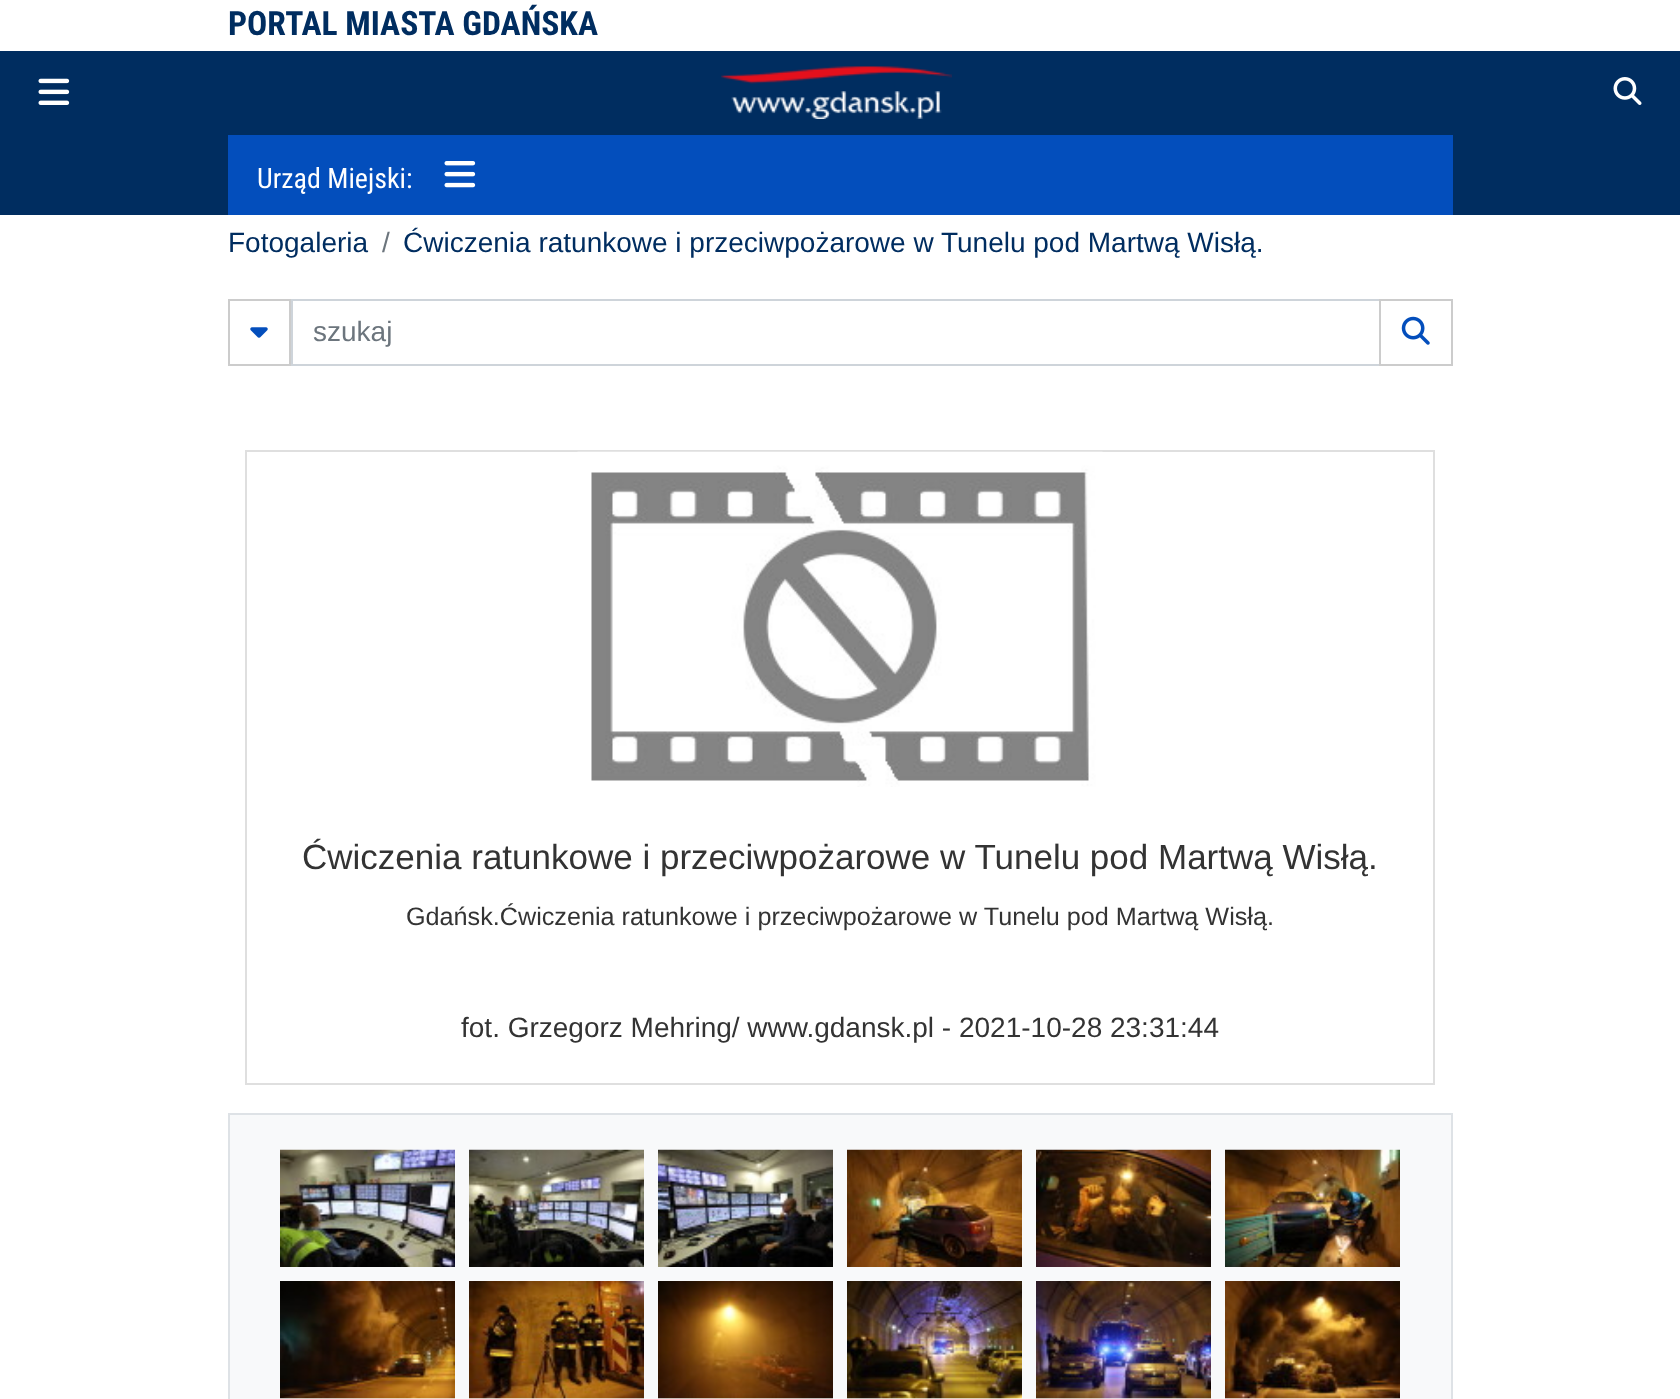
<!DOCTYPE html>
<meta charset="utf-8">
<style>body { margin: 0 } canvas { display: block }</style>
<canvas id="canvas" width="1680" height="1399"></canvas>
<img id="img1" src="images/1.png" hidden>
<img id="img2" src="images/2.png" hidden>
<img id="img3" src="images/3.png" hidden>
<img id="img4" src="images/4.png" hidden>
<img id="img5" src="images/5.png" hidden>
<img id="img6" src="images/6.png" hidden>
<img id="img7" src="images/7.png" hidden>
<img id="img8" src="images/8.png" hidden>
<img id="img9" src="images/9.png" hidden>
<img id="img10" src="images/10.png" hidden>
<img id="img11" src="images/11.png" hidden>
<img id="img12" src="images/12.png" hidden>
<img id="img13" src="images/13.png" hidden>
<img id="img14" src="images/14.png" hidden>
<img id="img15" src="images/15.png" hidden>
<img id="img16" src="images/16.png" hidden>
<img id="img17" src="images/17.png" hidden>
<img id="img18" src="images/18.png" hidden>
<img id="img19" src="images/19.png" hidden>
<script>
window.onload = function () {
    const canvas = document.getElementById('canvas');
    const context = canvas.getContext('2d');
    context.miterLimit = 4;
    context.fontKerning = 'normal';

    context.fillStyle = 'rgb(255, 255, 255)';
    context.fillRect(0, 0, 1680, 1399);
    context.fillStyle = 'rgb(0, 45, 96)';
    context.fillRect(0, 51, 1680, 164);
    context.drawImage(document.getElementById('img1'), 38, 78, 32, 27);
    context.drawImage(document.getElementById('img2'), 721, 66, 231, 53);
    context.drawImage(document.getElementById('img3'), 1613, 77, 29, 28);
    context.fillStyle = 'rgb(3, 78, 188)';
    context.fillRect(228, 135, 1225, 80);
    context.drawImage(document.getElementById('img4'), 444, 161, 32, 27);
    context.strokeStyle = 'rgb(204, 204, 204)';
    context.lineWidth = 2;
    context.strokeRect(229, 300, 61, 65);
    context.drawImage(document.getElementById('img5'), 250, 327, 18, 11);
    context.strokeStyle = 'rgb(206, 212, 218)';
    context.strokeRect(292, 300, 1088, 65);
    context.strokeStyle = 'rgb(204, 204, 204)';
    context.strokeRect(1380, 300, 72, 65);
    context.drawImage(document.getElementById('img6'), 1401, 316, 29, 29);
    context.strokeStyle = 'rgb(223, 223, 223)';
    context.strokeRect(246, 451, 1188, 633);
    context.drawImage(document.getElementById('img7'), 577, 451, 526, 336);
    context.fillStyle = 'rgb(248, 249, 250)';
    context.beginPath();
    context.rect(229, 1114, 1223, 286);
    context.fill();
    context.strokeStyle = 'rgb(222, 226, 230)';
    context.stroke();
    context.drawImage(document.getElementById('img8'), 280, 1149, 175, 118);
    context.drawImage(document.getElementById('img9'), 469, 1149, 175, 118);
    context.drawImage(document.getElementById('img10'), 658, 1149, 175, 118);
    context.drawImage(document.getElementById('img11'), 847, 1149, 175, 118);
    context.drawImage(document.getElementById('img12'), 1036, 1149, 175, 118);
    context.drawImage(document.getElementById('img13'), 1225, 1149, 175, 118);
    context.drawImage(document.getElementById('img14'), 280, 1281, 175, 118);
    context.drawImage(document.getElementById('img15'), 469, 1281, 175, 118);
    context.drawImage(document.getElementById('img16'), 658, 1281, 175, 118);
    context.drawImage(document.getElementById('img17'), 847, 1281, 175, 118);
    context.drawImage(document.getElementById('img18'), 1036, 1281, 175, 118);
    context.drawImage(document.getElementById('img19'), 1225, 1281, 175, 118);
    context.font = 'bold 33.6px Roboto Condensed';
    context.fillStyle = 'rgb(0, 45, 96)';
    context.fillText('PORTAL MIASTA GDAŃSKA', 228, 35);
    context.font = '28px Roboto Condensed';
    context.fillStyle = 'rgb(255, 255, 255)';
    context.fillText('Urząd Miejski:', 257, 188);
    context.font = '28px Liberation Sans';
    context.fillStyle = 'rgb(0, 45, 96)';
    context.fillText('Fotogaleria', 228, 252);
    context.fillStyle = 'rgb(108, 117, 125)';
    context.fillText('/', 382, 252);
    context.fillStyle = 'rgb(0, 45, 96)';
    context.fillText('Ćwiczenia ratunkowe i przeciwpożarowe w Tunelu pod Martwą Wisłą.', 403, 252);
    context.fillStyle = 'rgb(108, 117, 125)';
    context.fillText('szukaj', 313, 341);
    context.font = '35px Liberation Sans';
    context.fillStyle = 'rgb(51, 51, 51)';
    context.fillText('Ćwiczenia ratunkowe i przeciwpożarowe w Tunelu pod Martwą Wisłą.', 302, 869);
    context.font = '25.2px Liberation Sans';
    context.fillText('Gdańsk.Ćwiczenia ratunkowe i przeciwpożarowe w Tunelu pod Martwą Wisłą.', 406, 925);
    context.font = '28px Liberation Sans';
    context.fillText('fot. Grzegorz Mehring/ www.gdansk.pl - 2021-10-28 23:31:44', 461, 1037);
};
</script>
